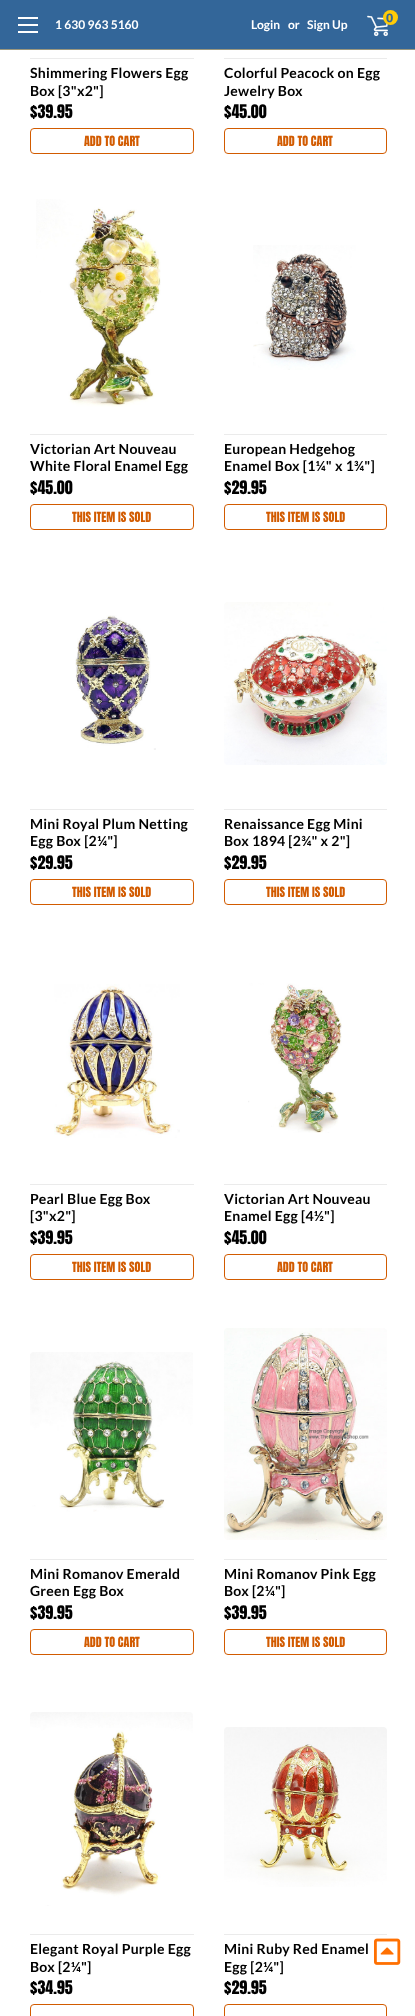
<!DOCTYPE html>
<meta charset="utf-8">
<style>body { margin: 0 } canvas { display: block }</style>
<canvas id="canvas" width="415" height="2016"></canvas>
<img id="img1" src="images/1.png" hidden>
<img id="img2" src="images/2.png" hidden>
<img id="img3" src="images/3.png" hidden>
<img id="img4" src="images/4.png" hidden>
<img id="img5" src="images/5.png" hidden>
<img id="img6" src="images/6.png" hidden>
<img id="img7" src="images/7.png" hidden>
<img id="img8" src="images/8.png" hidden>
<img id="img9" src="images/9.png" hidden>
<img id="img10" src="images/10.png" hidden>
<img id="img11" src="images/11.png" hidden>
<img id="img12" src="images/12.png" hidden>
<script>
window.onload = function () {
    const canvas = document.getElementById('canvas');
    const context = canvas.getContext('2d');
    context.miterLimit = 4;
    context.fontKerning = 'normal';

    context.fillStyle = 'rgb(255, 255, 255)';
    context.fillRect(0, 0, 415, 2016);
    context.fillStyle = 'rgb(51, 102, 153)';
    context.fillRect(0, 0, 415, 49);
    context.fillStyle = 'rgb(154, 151, 126)';
    context.fillRect(0, 49, 415, 1);
    context.fillStyle = 'rgb(255, 255, 255)';
    context.fillRect(18, 24, 20, 2);
    context.fillRect(18, 17, 20, 2);
    context.fillRect(18, 31, 20, 2);
    context.drawImage(document.getElementById('img1'), 367, 15, 21, 22);
    context.fillStyle = 'rgb(255, 203, 7)';
    context.beginPath();
    context.arc(390.5, 17.5, 7.5, 0, 2 * Math.PI);
    context.fill();
    context.fillStyle = 'rgb(235, 235, 235)';
    context.fillRect(30, 58, 164, 1);
    context.beginPath();
    context.roundRect(30.5, 128.5, 163, 25, 3.5);
    context.strokeStyle = 'rgb(210, 91, 0)';
    context.stroke();
    context.fillRect(224, 58, 163, 1);
    context.beginPath();
    context.roundRect(224.5, 128.5, 162, 25, 3.5);
    context.stroke();
    context.drawImage(document.getElementById('img2'), 36, 199, 125, 208);
    context.fillRect(30, 434, 164, 1);
    context.beginPath();
    context.roundRect(30.5, 504.5, 163, 25, 3.5);
    context.stroke();
    context.drawImage(document.getElementById('img3'), 253, 245, 103, 125);
    context.fillRect(224, 434, 163, 1);
    context.beginPath();
    context.roundRect(224.5, 504.5, 162, 25, 3.5);
    context.stroke();
    context.drawImage(document.getElementById('img4'), 75, 615, 81, 135);
    context.fillRect(30, 809, 164, 1);
    context.beginPath();
    context.roundRect(30.5, 879.5, 163, 25, 3.5);
    context.stroke();
    context.drawImage(document.getElementById('img5'), 224, 602, 163, 163);
    context.fillRect(224, 809, 163, 1);
    context.beginPath();
    context.roundRect(224.5, 879.5, 162, 25, 3.5);
    context.stroke();
    context.drawImage(document.getElementById('img6'), 54, 984, 126, 154);
    context.fillRect(30, 1184, 164, 1);
    context.beginPath();
    context.roundRect(30.5, 1254.5, 163, 25, 3.5);
    context.stroke();
    context.drawImage(document.getElementById('img7'), 248, 983, 94, 150);
    context.fillRect(224, 1184, 163, 1);
    context.beginPath();
    context.roundRect(224.5, 1254.5, 162, 25, 3.5);
    context.stroke();
    context.drawImage(document.getElementById('img8'), 30, 1352, 163, 160);
    context.fillRect(30, 1559, 164, 1);
    context.beginPath();
    context.roundRect(30.5, 1629.5, 163, 25, 3.5);
    context.stroke();
    context.drawImage(document.getElementById('img9'), 224, 1328, 163, 212);
    context.fillRect(224, 1559, 163, 1);
    context.beginPath();
    context.roundRect(224.5, 1629.5, 162, 25, 3.5);
    context.stroke();
    context.drawImage(document.getElementById('img10'), 30, 1712, 163, 194);
    context.fillRect(30, 1934, 164, 1);
    context.beginPath();
    context.roundRect(30.5, 2004.5, 163, 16, 3.5);
    context.stroke();
    context.drawImage(document.getElementById('img11'), 224, 1727, 163, 160);
    context.fillRect(224, 1934, 163, 1);
    context.beginPath();
    context.roundRect(224.5, 2004.5, 162, 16, 3.5);
    context.stroke();
    context.drawImage(document.getElementById('img12'), 374, 1938, 27, 27);
    context.font = 'bold 12px Lato';
    context.fillStyle = 'rgb(255, 255, 255)';
    context.fillText('1 630 963 5160', 55, 29);
    context.font = 'bold 12px IBM Plex Sans';
    context.fillStyle = 'rgb(51, 102, 153)';
    context.fillText('0', 386, 22);
    context.font = 'bold 12px Lato';
    context.fillStyle = 'rgb(255, 255, 255)';
    context.fillText('Login', 251, 29);
    context.fillText('or', 288, 29);
    context.fillText('Sign Up', 307, 29);
    context.letterSpacing = '0.25px';
    context.font = 'bold 14px Lato';
    context.fillStyle = 'rgb(0, 0, 0)';
    context.fillText('Shimmering Flowers Egg', 30, 78);
    context.fillText('Box [3"x2"]', 30, 96);
    context.letterSpacing = '0px';
    context.font = '16px Anton';
    context.fillText('$39.95', 30, 118);
    context.font = '12px Anton';
    context.fillStyle = 'rgb(210, 91, 0)';
    context.fillText('ADD TO CART', 84, 146);
    context.letterSpacing = '0.25px';
    context.font = 'bold 14px Lato';
    context.fillStyle = 'rgb(0, 0, 0)';
    context.fillText('Colorful Peacock on Egg', 224, 78);
    context.fillText('Jewelry Box', 224, 96);
    context.letterSpacing = '0px';
    context.font = '16px Anton';
    context.fillText('$45.00', 224, 118);
    context.font = '12px Anton';
    context.fillStyle = 'rgb(210, 91, 0)';
    context.fillText('ADD TO CART', 277, 146);
    context.letterSpacing = '0.25px';
    context.font = 'bold 14px Lato';
    context.fillStyle = 'rgb(0, 0, 0)';
    context.fillText('Victorian Art Nouveau', 30, 454);
    context.fillText('White Floral Enamel Egg', 30, 471);
    context.letterSpacing = '0px';
    context.font = '16px Anton';
    context.fillText('$45.00', 30, 494);
    context.font = '12px Anton';
    context.fillStyle = 'rgb(210, 91, 0)';
    context.fillText('THIS ITEM IS SOLD', 72, 522);
    context.letterSpacing = '0.25px';
    context.font = 'bold 14px Lato';
    context.fillStyle = 'rgb(0, 0, 0)';
    context.fillText('European Hedgehog', 224, 454);
    context.fillText('Enamel Box [1¼" x 1¾"]', 224, 471);
    context.letterSpacing = '0px';
    context.font = '16px Anton';
    context.fillText('$29.95', 224, 494);
    context.font = '12px Anton';
    context.fillStyle = 'rgb(210, 91, 0)';
    context.fillText('THIS ITEM IS SOLD', 266, 522);
    context.letterSpacing = '0.25px';
    context.font = 'bold 14px Lato';
    context.fillStyle = 'rgb(0, 0, 0)';
    context.fillText('Mini Royal Plum Netting', 30, 829);
    context.fillText('Egg Box [2¼"]', 30, 846);
    context.letterSpacing = '0px';
    context.font = '16px Anton';
    context.fillText('$29.95', 30, 869);
    context.font = '12px Anton';
    context.fillStyle = 'rgb(210, 91, 0)';
    context.fillText('THIS ITEM IS SOLD', 72, 897);
    context.letterSpacing = '0.25px';
    context.font = 'bold 14px Lato';
    context.fillStyle = 'rgb(0, 0, 0)';
    context.fillText('Renaissance Egg Mini', 224, 829);
    context.fillText('Box 1894 [2¾" x 2"]', 224, 846);
    context.letterSpacing = '0px';
    context.font = '16px Anton';
    context.fillText('$29.95', 224, 869);
    context.font = '12px Anton';
    context.fillStyle = 'rgb(210, 91, 0)';
    context.fillText('THIS ITEM IS SOLD', 266, 897);
    context.letterSpacing = '0.25px';
    context.font = 'bold 14px Lato';
    context.fillStyle = 'rgb(0, 0, 0)';
    context.fillText('Pearl Blue Egg Box', 30, 1204);
    context.fillText('[3"x2"]', 30, 1221);
    context.letterSpacing = '0px';
    context.font = '16px Anton';
    context.fillText('$39.95', 30, 1244);
    context.font = '12px Anton';
    context.fillStyle = 'rgb(210, 91, 0)';
    context.fillText('THIS ITEM IS SOLD', 72, 1272);
    context.letterSpacing = '0.25px';
    context.font = 'bold 14px Lato';
    context.fillStyle = 'rgb(0, 0, 0)';
    context.fillText('Victorian Art Nouveau', 224, 1204);
    context.fillText('Enamel Egg [4½"]', 224, 1221);
    context.letterSpacing = '0px';
    context.font = '16px Anton';
    context.fillText('$45.00', 224, 1244);
    context.font = '12px Anton';
    context.fillStyle = 'rgb(210, 91, 0)';
    context.fillText('ADD TO CART', 277, 1272);
    context.letterSpacing = '0.25px';
    context.font = 'bold 14px Lato';
    context.fillStyle = 'rgb(0, 0, 0)';
    context.fillText('Mini Romanov Emerald', 30, 1579);
    context.fillText('Green Egg Box', 30, 1596);
    context.letterSpacing = '0px';
    context.font = '16px Anton';
    context.fillText('$39.95', 30, 1619);
    context.font = '12px Anton';
    context.fillStyle = 'rgb(210, 91, 0)';
    context.fillText('ADD TO CART', 84, 1647);
    context.letterSpacing = '0.25px';
    context.font = 'bold 14px Lato';
    context.fillStyle = 'rgb(0, 0, 0)';
    context.fillText('Mini Romanov Pink Egg', 224, 1579);
    context.fillText('Box [2¼"]', 224, 1596);
    context.letterSpacing = '0px';
    context.font = '16px Anton';
    context.fillText('$39.95', 224, 1619);
    context.font = '12px Anton';
    context.fillStyle = 'rgb(210, 91, 0)';
    context.fillText('THIS ITEM IS SOLD', 266, 1647);
    context.letterSpacing = '0.25px';
    context.font = 'bold 14px Lato';
    context.fillStyle = 'rgb(0, 0, 0)';
    context.fillText('Elegant Royal Purple Egg', 30, 1954);
    context.fillText('Box [2¼"]', 30, 1972);
    context.letterSpacing = '0px';
    context.font = '16px Anton';
    context.fillText('$34.95', 30, 1994);
    context.letterSpacing = '0.25px';
    context.font = 'bold 14px Lato';
    context.fillText('Mini Ruby Red Enamel', 224, 1954);
    context.fillText('Egg [2¼"]', 224, 1972);
    context.letterSpacing = '0px';
    context.font = '16px Anton';
    context.fillText('$29.95', 224, 1994);
};
</script>
